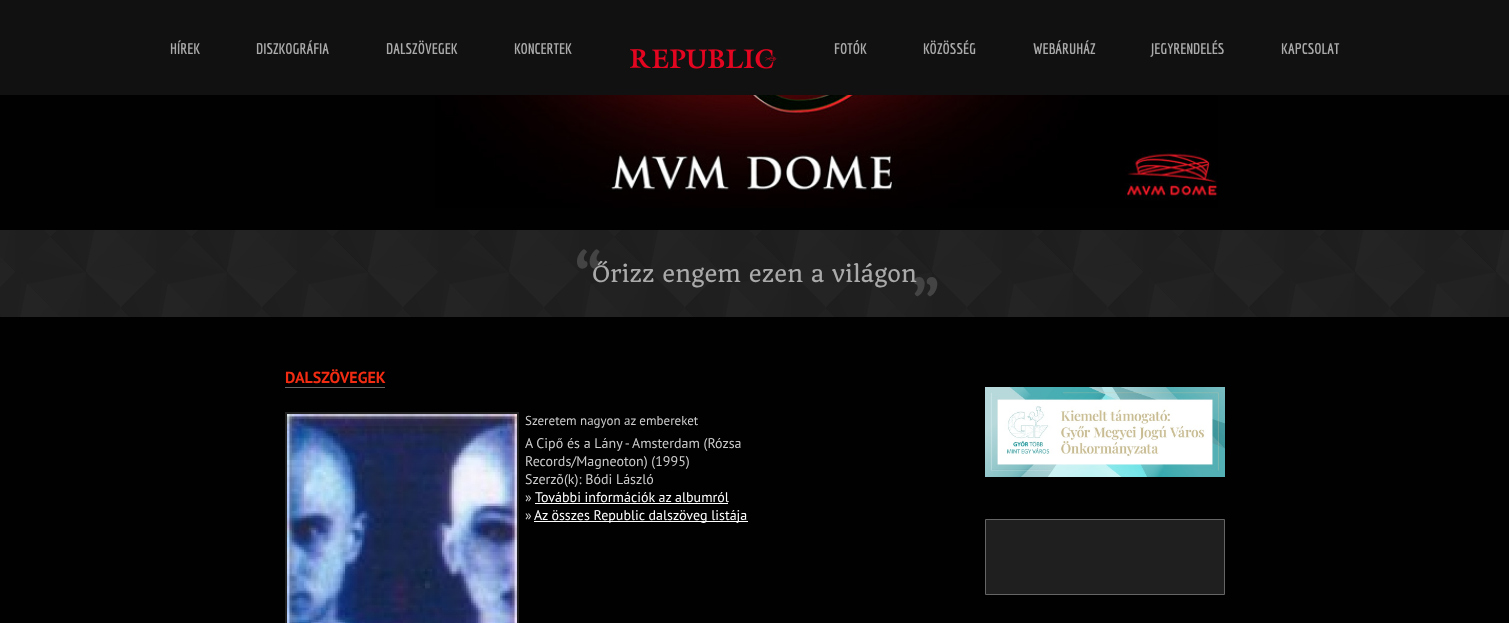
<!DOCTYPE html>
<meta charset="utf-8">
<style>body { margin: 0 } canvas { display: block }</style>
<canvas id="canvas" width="1509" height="623"></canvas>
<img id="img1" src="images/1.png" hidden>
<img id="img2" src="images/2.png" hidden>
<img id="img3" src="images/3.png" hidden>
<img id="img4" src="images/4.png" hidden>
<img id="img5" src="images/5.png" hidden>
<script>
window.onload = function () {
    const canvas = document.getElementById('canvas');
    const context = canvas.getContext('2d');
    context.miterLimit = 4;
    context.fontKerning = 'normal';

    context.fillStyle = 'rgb(1, 1, 1)';
    context.fillRect(0, 0, 1509, 623);
    context.fillStyle = 'rgb(17, 17, 17)';
    context.fillRect(0, 0, 1509, 95);
    context.drawImage(document.getElementById('img1'), 630, 49, 147, 20);
    context.drawImage(document.getElementById('img2'), 435, 95, 783, 113);
    context.drawImage(document.getElementById('img3'), 0, 230, 1509, 87);
    context.fillStyle = 'rgb(100, 100, 100)';
    context.fillRect(285, 387, 100, 1);
    context.strokeStyle = 'rgb(34, 34, 34)';
    context.lineWidth = 2;
    context.strokeRect(286, 413, 232, 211);
    context.drawImage(document.getElementById('img4'), 287, 414, 230, 209);
    context.fillStyle = 'rgb(255, 255, 255)';
    context.fillRect(535, 503, 193, 1);
    context.fillRect(534, 521, 214, 1);
    context.drawImage(document.getElementById('img5'), 985, 387, 240, 90);
    context.fillStyle = 'rgb(31, 31, 31)';
    context.beginPath();
    context.rect(985.5, 519.5, 239, 75);
    context.fill();
    context.strokeStyle = 'rgb(101, 101, 101)';
    context.lineWidth = 1;
    context.stroke();
    context.font = 'bold 15px Economica';
    context.fillStyle = 'rgb(170, 170, 170)';
    context.fillText('HÍREK', 170, 54);
    context.fillText('DISZKOGRÁFIA', 256, 54);
    context.fillText('DALSZÖVEGEK', 386, 54);
    context.fillText('KONCERTEK', 514, 54);
    context.fillText('FOTÓK', 834, 54);
    context.fillText('KÖZÖSSÉG', 923, 54);
    context.fillText('WEBÁRUHÁZ', 1033, 54);
    context.fillText('JEGYRENDELÉS', 1151, 54);
    context.fillText('KAPCSOLAT', 1281, 54);
    context.font = 'bold 50px Quando';
    context.fillStyle = 'rgb(68, 68, 68)';
    context.fillText('“', 573, 293);
    context.fillText('„', 910, 287);
    context.font = '22px Quando';
    context.fillStyle = 'rgb(170, 170, 170)';
    context.fillText('Őrizz engem ezen a világon', 592, 282);
    context.font = 'bold 16px PT Sans';
    context.fillStyle = 'rgb(242, 44, 19)';
    context.fillText('DALSZÖVEGEK', 285, 383);
    context.font = '13px PT Sans';
    context.fillStyle = 'rgb(204, 204, 204)';
    context.fillText('Szeretem nagyon az embereket', 525, 425);
    context.font = '14px PT Sans';
    context.fillText('A Cipő és a Lány - Amsterdam (Rózsa', 525, 448);
    context.fillText('Records/Magneoton) (1995)', 525, 466);
    context.fillText('Szerzõ(k): Bódi László', 525, 484);
    context.fillText('»', 525, 502);
    context.fillStyle = 'rgb(255, 255, 255)';
    context.fillText('További információk az albumról', 535, 502);
    context.fillStyle = 'rgb(204, 204, 204)';
    context.fillText('»', 525, 520);
    context.fillStyle = 'rgb(255, 255, 255)';
    context.fillText('Az összes Republic dalszöveg listája', 534, 520);
};
</script>
